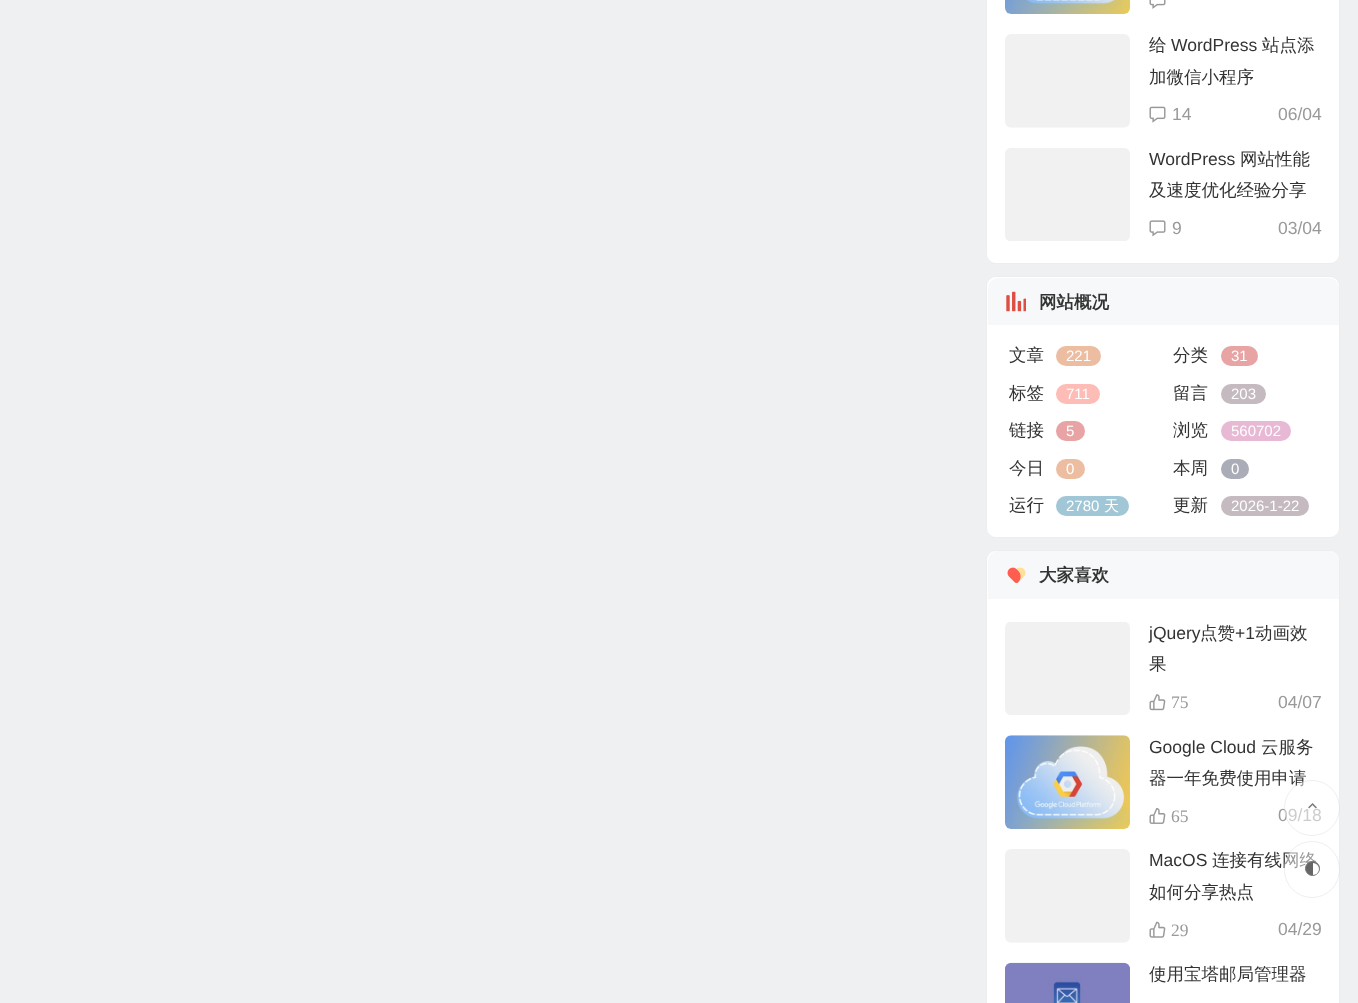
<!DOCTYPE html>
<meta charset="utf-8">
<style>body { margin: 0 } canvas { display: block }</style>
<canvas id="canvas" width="1358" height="1003"></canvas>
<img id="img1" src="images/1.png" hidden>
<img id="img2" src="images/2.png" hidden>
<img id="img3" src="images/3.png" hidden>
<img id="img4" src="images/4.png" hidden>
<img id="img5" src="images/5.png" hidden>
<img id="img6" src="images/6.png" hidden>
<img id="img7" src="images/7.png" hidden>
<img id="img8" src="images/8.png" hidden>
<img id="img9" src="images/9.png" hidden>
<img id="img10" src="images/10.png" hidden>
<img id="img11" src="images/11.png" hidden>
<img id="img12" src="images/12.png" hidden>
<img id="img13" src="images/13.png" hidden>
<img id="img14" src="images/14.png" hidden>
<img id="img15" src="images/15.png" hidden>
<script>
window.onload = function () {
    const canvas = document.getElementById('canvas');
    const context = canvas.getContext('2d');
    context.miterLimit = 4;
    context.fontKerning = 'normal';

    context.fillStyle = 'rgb(239, 240, 242)';
    context.fillRect(0, 0, 1358, 1003);
    context.fillStyle = 'rgb(255, 255, 255)';
    context.beginPath();
    context.roundRect(986, -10, 354, 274, 10);
    context.fill();
    context.beginPath();
    context.roundRect(986.5, -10.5, 353, 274, 9.5);
    context.strokeStyle = 'rgba(0, 0, 0, 0.07)';
    context.stroke();
    context.drawImage(document.getElementById('img1'), 1005, 0, 125, 14);
    context.drawImage(document.getElementById('img2'), 1149, 0, 17, 9);
    context.drawImage(document.getElementById('img3'), 1005, 34, 125, 94);
    context.drawImage(document.getElementById('img4'), 1149, 106, 17, 17);
    context.drawImage(document.getElementById('img5'), 1005, 148, 125, 93);
    context.drawImage(document.getElementById('img6'), 1149, 220, 17, 17);
    context.beginPath();
    context.roundRect(986, 276, 354, 262, 10);
    context.fill();
    context.beginPath();
    context.roundRect(986.5, 276.5, 353, 261, 9.5);
    context.stroke();
    context.fillStyle = 'rgb(247, 248, 249)';
    context.beginPath();
    context.roundRect(988, 278, 351, 47, [10, 10, 0, 0]);
    context.fill();
    context.drawImage(document.getElementById('img7'), 1006, 291, 20, 21);
    context.fillStyle = 'rgb(237, 189, 162)';
    context.beginPath();
    context.roundRect(1056, 346, 45, 20, 10);
    context.fill();
    context.fillStyle = 'rgb(232, 163, 164)';
    context.beginPath();
    context.roundRect(1221, 346, 37, 20, 10);
    context.fill();
    context.fillStyle = 'rgb(254, 188, 182)';
    context.beginPath();
    context.roundRect(1056, 384, 44, 20, 10);
    context.fill();
    context.fillStyle = 'rgb(196, 186, 191)';
    context.beginPath();
    context.roundRect(1221, 384, 45, 20, 10);
    context.fill();
    context.fillStyle = 'rgb(232, 163, 164)';
    context.beginPath();
    context.roundRect(1056, 421, 29, 20, 10);
    context.fill();
    context.fillStyle = 'rgb(232, 185, 213)';
    context.beginPath();
    context.roundRect(1221, 421, 70, 20, 10);
    context.fill();
    context.fillStyle = 'rgb(237, 189, 162)';
    context.beginPath();
    context.roundRect(1056, 459, 29, 20, 10);
    context.fill();
    context.fillStyle = 'rgb(170, 172, 184)';
    context.beginPath();
    context.roundRect(1221, 459, 28, 20, 10);
    context.fill();
    context.fillStyle = 'rgb(161, 199, 215)';
    context.beginPath();
    context.roundRect(1056, 496, 73, 20, 10);
    context.fill();
    context.fillStyle = 'rgb(196, 186, 191)';
    context.beginPath();
    context.roundRect(1221, 496, 88, 20, 10);
    context.fill();
    context.fillStyle = 'rgb(255, 255, 255)';
    context.beginPath();
    context.roundRect(986, 550, 354, 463, 10);
    context.fill();
    context.beginPath();
    context.roundRect(986.5, 550.5, 353, 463, 9.5);
    context.stroke();
    context.fillStyle = 'rgb(247, 248, 249)';
    context.beginPath();
    context.roundRect(988, 551, 351, 48, [10, 10, 0, 0]);
    context.fill();
    context.drawImage(document.getElementById('img8'), 1007, 567, 19, 16);
    context.drawImage(document.getElementById('img9'), 1005, 622, 125, 93);
    context.drawImage(document.getElementById('img10'), 1149, 694, 17, 17);
    context.drawImage(document.getElementById('img11'), 1005, 735, 125, 94);
    context.drawImage(document.getElementById('img12'), 1149, 808, 17, 16);
    context.drawImage(document.getElementById('img3'), 1005, 849, 125, 94);
    context.drawImage(document.getElementById('img13'), 1149, 921, 17, 17);
    context.drawImage(document.getElementById('img14'), 1005, 962, 125, 41);
    context.font = '500 17.5px WenQuanYi Zen Hei';
    context.fillStyle = 'rgb(51, 51, 51)';
    context.fillText('给', 1149, 51);
    context.font = '17.5px Liberation Sans';
    context.fillText('WordPress', 1171, 51);
    context.font = '500 17.5px WenQuanYi Zen Hei';
    context.fillText('站点添', 1262, 51);
    context.fillText('加微信小程序', 1149, 83);
    context.font = '17.5px Liberation Sans';
    context.fillStyle = 'rgb(153, 153, 153)';
    context.fillText('14', 1172, 120);
    context.fillText('06/04', 1278, 120);
    context.fillStyle = 'rgb(51, 51, 51)';
    context.fillText('WordPress', 1149, 165);
    context.font = '500 17.5px WenQuanYi Zen Hei';
    context.fillText('网站性能', 1240, 165);
    context.fillText('及速度优化经验分享', 1149, 196);
    context.font = '17.5px Liberation Sans';
    context.fillStyle = 'rgb(153, 153, 153)';
    context.fillText('9', 1172, 234);
    context.fillText('03/04', 1278, 234);
    context.font = 'bold 17.5px WenQuanYi Zen Hei';
    context.fillStyle = 'rgb(51, 51, 51)';
    context.fillText('网站概况', 1039, 308);
    context.font = '500 17.5px WenQuanYi Zen Hei';
    context.fillText('文章', 1009, 361);
    context.font = '15px Liberation Sans';
    context.fillStyle = 'rgb(255, 255, 255)';
    context.fillText('221', 1066, 361);
    context.font = '500 17.5px WenQuanYi Zen Hei';
    context.fillStyle = 'rgb(51, 51, 51)';
    context.fillText('分类', 1173, 361);
    context.font = '15px Liberation Sans';
    context.fillStyle = 'rgb(255, 255, 255)';
    context.fillText('31', 1231, 361);
    context.font = '500 17.5px WenQuanYi Zen Hei';
    context.fillStyle = 'rgb(51, 51, 51)';
    context.fillText('标签', 1009, 399);
    context.font = '15px Liberation Sans';
    context.fillStyle = 'rgb(255, 255, 255)';
    context.fillText('711', 1066, 399);
    context.font = '500 17.5px WenQuanYi Zen Hei';
    context.fillStyle = 'rgb(51, 51, 51)';
    context.fillText('留言', 1173, 399);
    context.font = '15px Liberation Sans';
    context.fillStyle = 'rgb(255, 255, 255)';
    context.fillText('203', 1231, 399);
    context.font = '500 17.5px WenQuanYi Zen Hei';
    context.fillStyle = 'rgb(51, 51, 51)';
    context.fillText('链接', 1009, 436);
    context.font = '15px Liberation Sans';
    context.fillStyle = 'rgb(255, 255, 255)';
    context.fillText('5', 1066, 436);
    context.font = '500 17.5px WenQuanYi Zen Hei';
    context.fillStyle = 'rgb(51, 51, 51)';
    context.fillText('浏览', 1173, 436);
    context.font = '15px Liberation Sans';
    context.fillStyle = 'rgb(255, 255, 255)';
    context.fillText('560702', 1231, 436);
    context.font = '500 17.5px WenQuanYi Zen Hei';
    context.fillStyle = 'rgb(51, 51, 51)';
    context.fillText('今日', 1009, 474);
    context.font = '15px Liberation Sans';
    context.fillStyle = 'rgb(255, 255, 255)';
    context.fillText('0', 1066, 474);
    context.font = '500 17.5px WenQuanYi Zen Hei';
    context.fillStyle = 'rgb(51, 51, 51)';
    context.fillText('本周', 1173, 474);
    context.font = '15px Liberation Sans';
    context.fillStyle = 'rgb(255, 255, 255)';
    context.fillText('0', 1231, 474);
    context.font = '500 17.5px WenQuanYi Zen Hei';
    context.fillStyle = 'rgb(51, 51, 51)';
    context.fillText('运行', 1009, 511);
    context.font = '15px Liberation Sans';
    context.fillStyle = 'rgb(255, 255, 255)';
    context.fillText('2780', 1066, 511);
    context.font = '500 15px WenQuanYi Zen Hei';
    context.fillText('天', 1104, 511);
    context.font = '500 17.5px WenQuanYi Zen Hei';
    context.fillStyle = 'rgb(51, 51, 51)';
    context.fillText('更新', 1173, 511);
    context.font = '15px Liberation Sans';
    context.fillStyle = 'rgb(255, 255, 255)';
    context.fillText('2026-1-22', 1231, 511);
    context.font = 'bold 17.5px WenQuanYi Zen Hei';
    context.fillStyle = 'rgb(51, 51, 51)';
    context.fillText('大家喜欢', 1039, 581);
    context.font = '17.5px Liberation Sans';
    context.fillText('jQuery', 1149, 639);
    context.font = '500 17.5px WenQuanYi Zen Hei';
    context.fillText('点赞', 1200, 639);
    context.font = '17.5px Liberation Sans';
    context.fillText('+1', 1235, 639);
    context.font = '500 17.5px WenQuanYi Zen Hei';
    context.fillText('动画效', 1255, 639);
    context.fillText('果', 1149, 670);
    context.font = '17.5px Liberation Serif';
    context.fillStyle = 'rgb(153, 153, 153)';
    context.fillText('75', 1171, 708);
    context.font = '17.5px Liberation Sans';
    context.fillText('04/07', 1278, 708);
    context.fillStyle = 'rgb(51, 51, 51)';
    context.fillText('Google Cloud', 1149, 753);
    context.font = '500 17.5px WenQuanYi Zen Hei';
    context.fillText('云服务', 1261, 753);
    context.fillText('器一年免费使用申请', 1149, 784);
    context.font = '17.5px Liberation Serif';
    context.fillStyle = 'rgb(153, 153, 153)';
    context.fillText('65', 1171, 822);
    context.font = '17.5px Liberation Sans';
    context.fillText('09/18', 1278, 821);
    context.fillStyle = 'rgb(51, 51, 51)';
    context.fillText('MacOS', 1149, 866);
    context.font = '500 17.5px WenQuanYi Zen Hei';
    context.fillText('连接有线网络', 1212, 866);
    context.fillText('如何分享热点', 1149, 898);
    context.font = '17.5px Liberation Serif';
    context.fillStyle = 'rgb(153, 153, 153)';
    context.fillText('29', 1171, 936);
    context.font = '17.5px Liberation Sans';
    context.fillText('04/29', 1278, 935);
    context.font = '500 17.5px WenQuanYi Zen Hei';
    context.fillStyle = 'rgb(51, 51, 51)';
    context.fillText('使用宝塔邮局管理器', 1149, 980);
    context.fillStyle = 'rgba(255, 255, 255, 0.5)';
    context.beginPath();
    context.arc(1312, 808, 28, 0, 2 * Math.PI);
    context.fill();
    context.beginPath();
    context.arc(1312, 808, 27.5, 0, 2 * Math.PI);
    context.stroke();
    context.drawImage(document.getElementById('img15'), 1308, 803, 9, 6);
    context.beginPath();
    context.roundRect(1284, 841, 56, 57, 28);
    context.fill();
    context.beginPath();
    context.roundRect(1284.5, 841.5, 55, 56, 27.5);
    context.stroke();
    context.fillStyle = 'rgb(102, 102, 102)';
    context.beginPath();
    context.arc(1312.5, 868.5, 7, 0, 2 * Math.PI);
    context.fill();
    context.strokeStyle = 'rgb(119, 119, 119)';
    context.stroke();
    context.fillStyle = 'rgb(255, 255, 255)';
    context.beginPath();
    context.roundRect(1313, 863, 6, 12, [0, 6, 6, 0]);
    context.fill();
};
</script>
